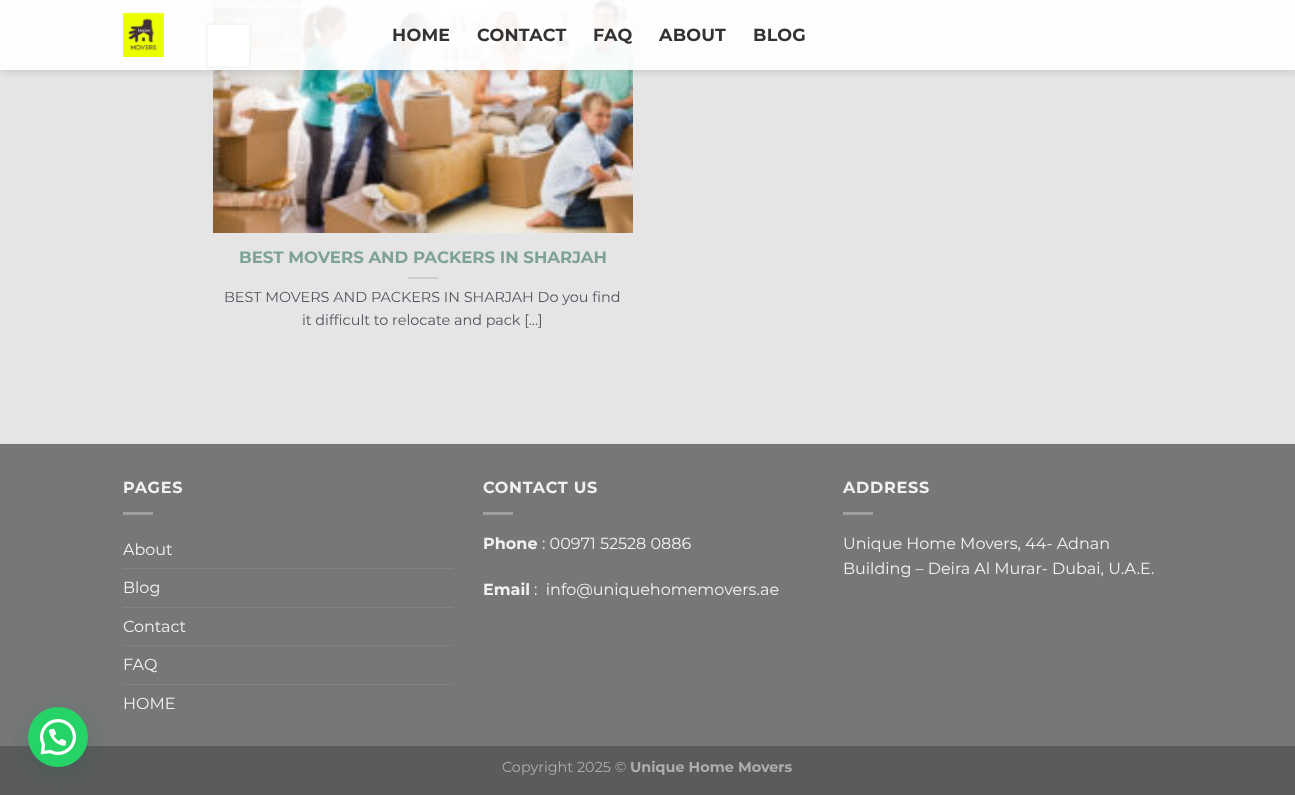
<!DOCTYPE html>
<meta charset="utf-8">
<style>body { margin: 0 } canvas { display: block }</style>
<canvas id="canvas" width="1295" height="795"></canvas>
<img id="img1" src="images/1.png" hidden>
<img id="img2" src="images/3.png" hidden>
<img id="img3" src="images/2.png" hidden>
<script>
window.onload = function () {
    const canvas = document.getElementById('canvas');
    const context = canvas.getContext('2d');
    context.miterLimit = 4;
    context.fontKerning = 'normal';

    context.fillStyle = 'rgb(229, 229, 229)';
    context.fillRect(0, 0, 1295, 795);
    context.fillStyle = 'rgb(119, 119, 119)';
    context.fillRect(0, 445, 1295, 301);
    context.fillStyle = 'rgb(130, 130, 130)';
    context.fillRect(123, 684, 330, 1);
    context.fillStyle = 'rgb(91, 91, 91)';
    context.fillRect(0, 746, 1295, 49);
    context.fillStyle = 'rgba(7, 94, 84, 0.24)';
    context.filter = 'blur(12px)';
    context.beginPath();
    context.roundRect(29, 713, 60, 60, 30);
    context.fill();
    context.filter = 'none';
    context.fillStyle = 'rgb(37, 211, 102)';
    context.beginPath();
    context.arc(58, 737, 30, 0, 2 * Math.PI);
    context.fill();
    context.drawImage(document.getElementById('img1'), 40, 719, 36, 36);
    context.drawImage(document.getElementById('img2'), 213, 0, 420, 233);
    context.fillStyle = 'rgb(255, 255, 255)';
    context.beginPath();
    context.rect(207, 24, 43, 43);
    context.fill();
    context.strokeStyle = 'rgb(134, 170, 158)';
    context.lineWidth = 2;
    context.stroke();
    context.save();
    context.beginPath();
    context.rect(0, 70, 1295, 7);
    context.clip();
    context.fillStyle = 'rgba(0, 0, 0, 0.15)';
    context.filter = 'blur(5px)';
    context.beginPath();
    context.rect(1, 1, 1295, 70);
    context.fill();
    context.filter = 'none';
    context.restore();
    context.fillStyle = 'rgba(255, 255, 255, 0.9)';
    context.fillRect(0, 0, 1295, 70);
    context.drawImage(document.getElementById('img3'), 122, 12, 42, 45);
    context.fillStyle = 'rgb(206, 206, 206)';
    context.fillRect(408, 277, 30, 2);
    context.fillStyle = 'rgb(113, 113, 113)';
    context.fillRect(0, 444, 1295, 1);
    context.fillStyle = 'rgb(160, 160, 160)';
    context.fillRect(123, 512, 30, 3);
    context.fillStyle = 'rgb(130, 130, 130)';
    context.fillRect(123, 568, 330, 1);
    context.fillRect(123, 607, 330, 1);
    context.fillRect(123, 645, 330, 1);
    context.fillStyle = 'rgb(160, 160, 160)';
    context.fillRect(483, 512, 30, 3);
    context.fillRect(843, 512, 30, 3);
    context.letterSpacing = '0.25px';
    context.font = 'bold 17.5px Montserrat';
    context.fillStyle = 'rgb(51, 51, 51)';
    context.fillText('HOME', 392, 41);
    context.fillText('CONTACT', 477, 41);
    context.fillText('FAQ', 593, 41);
    context.fillText('ABOUT', 659, 41);
    context.fillText('BLOG', 753, 41);
    context.letterSpacing = '0px';
    context.font = 'bold 16.6px Montserrat';
    context.fillStyle = 'rgb(127, 162, 151)';
    context.fillText('BEST MOVERS AND PACKERS IN SHARJAH', 239, 263);
    context.font = '14.4px Montserrat';
    context.fillStyle = 'rgb(87, 82, 96)';
    context.fillText('BEST MOVERS AND PACKERS IN SHARJAH Do you find', 224, 302);
    context.fillText('it difficult to relocate and pack [...]', 302, 325);
    context.letterSpacing = '0.75px';
    context.font = 'bold 16px Montserrat';
    context.fillStyle = 'rgb(241, 241, 241)';
    context.fillText('PAGES', 123, 493);
    context.letterSpacing = '0px';
    context.font = '16px Montserrat';
    context.fillText('About', 123, 555);
    context.fillText('Blog', 123, 593);
    context.fillText('Contact', 123, 632);
    context.fillText('FAQ', 123, 670);
    context.fillText('HOME', 123, 709);
    context.letterSpacing = '0.75px';
    context.font = 'bold 16px Montserrat';
    context.fillText('CONTACT US', 483, 493);
    context.letterSpacing = '0px';
    context.fillText('Phone', 483, 549);
    context.font = '16px Montserrat';
    context.fillText(': 00971 52528 0886', 542, 549);
    context.font = 'bold 16px Montserrat';
    context.fillText('Email', 483, 595);
    context.font = '16px Montserrat';
    context.fillText(':  info@uniquehomemovers.ae', 534, 595);
    context.letterSpacing = '0.75px';
    context.font = 'bold 16px Montserrat';
    context.fillText('ADDRESS', 843, 493);
    context.letterSpacing = '0px';
    context.font = '16px Montserrat';
    context.fillText('Unique Home Movers, 44- Adnan', 843, 549);
    context.fillText('Building – Deira Al Murar- Dubai, U.A.E.', 843, 574);
    context.font = '14.4px Montserrat';
    context.fillStyle = 'rgb(173, 173, 173)';
    context.fillText('Copyright 2025 ©', 502, 772);
    context.font = 'bold 14.4px Montserrat';
    context.fillText('Unique Home Movers', 630, 772);
};
</script>
